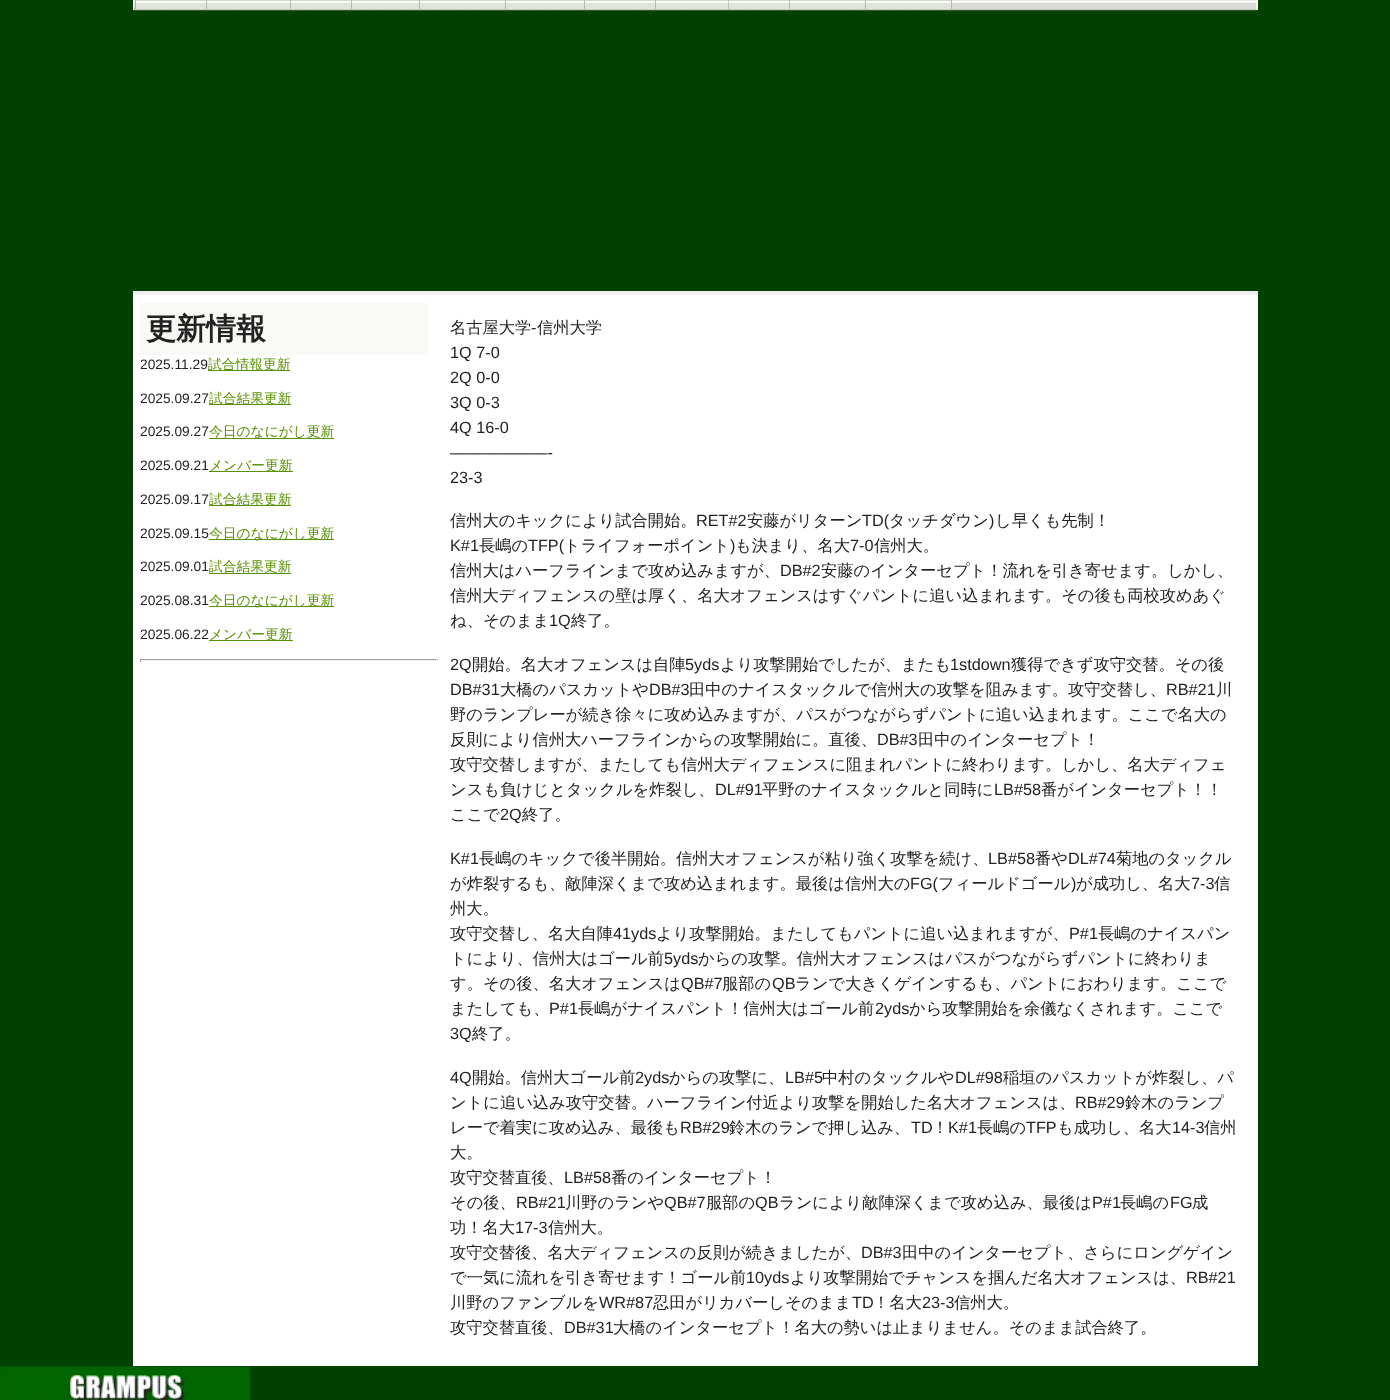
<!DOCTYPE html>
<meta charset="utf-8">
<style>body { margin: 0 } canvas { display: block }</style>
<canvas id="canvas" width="1390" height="1400"></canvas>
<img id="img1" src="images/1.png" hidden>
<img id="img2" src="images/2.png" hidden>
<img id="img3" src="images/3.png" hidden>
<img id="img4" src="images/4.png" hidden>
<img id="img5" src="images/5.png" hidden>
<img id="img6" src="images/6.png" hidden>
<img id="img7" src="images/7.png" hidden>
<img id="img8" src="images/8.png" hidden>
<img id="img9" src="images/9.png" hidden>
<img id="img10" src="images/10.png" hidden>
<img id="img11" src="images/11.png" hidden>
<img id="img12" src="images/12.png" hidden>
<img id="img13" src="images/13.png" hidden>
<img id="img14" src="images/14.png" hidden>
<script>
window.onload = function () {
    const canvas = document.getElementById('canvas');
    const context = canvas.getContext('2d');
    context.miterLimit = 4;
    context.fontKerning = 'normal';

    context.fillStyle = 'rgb(0, 65, 0)';
    context.fillRect(0, 0, 1390, 1400);
    context.fillStyle = 'rgb(255, 255, 255)';
    context.fillRect(133, 0, 1125, 10);
    context.drawImage(document.getElementById('img1'), 133, 0, 1124, 11);
    context.fillStyle = 'rgb(198, 198, 191)';
    context.fillRect(134, 9, 1122, 1);
    context.drawImage(document.getElementById('img2'), 136, 0, 1121, 9);
    context.fillStyle = 'rgb(167, 179, 179)';
    context.fillRect(135, 0, 1, 9);
    context.drawImage(document.getElementById('img3'), 136, 0, 72, 9);
    context.fillStyle = 'rgb(177, 189, 170)';
    context.fillRect(206, 0, 1, 9);
    context.drawImage(document.getElementById('img4'), 207, 0, 85, 9);
    context.fillRect(290, 0, 1, 9);
    context.drawImage(document.getElementById('img5'), 291, 0, 62, 9);
    context.fillRect(351, 0, 1, 9);
    context.drawImage(document.getElementById('img6'), 352, 0, 67, 9);
    context.fillRect(419, 0, 1, 9);
    context.drawImage(document.getElementById('img7'), 420, 0, 87, 9);
    context.fillRect(505, 0, 1, 9);
    context.drawImage(document.getElementById('img8'), 506, 0, 78, 9);
    context.fillRect(584, 0, 1, 9);
    context.drawImage(document.getElementById('img9'), 585, 0, 72, 9);
    context.fillRect(655, 0, 1, 9);
    context.drawImage(document.getElementById('img10'), 656, 0, 72, 9);
    context.fillRect(728, 0, 1, 9);
    context.drawImage(document.getElementById('img11'), 728, 0, 61, 9);
    context.fillRect(789, 0, 1, 9);
    context.drawImage(document.getElementById('img12'), 790, 0, 77, 9);
    context.fillRect(865, 0, 1, 9);
    context.drawImage(document.getElementById('img13'), 866, 0, 87, 9);
    context.fillRect(951, 0, 1, 9);
    context.fillStyle = 'rgb(255, 255, 255)';
    context.fillRect(133, 295, 1125, 1071);
    context.fillStyle = 'rgb(240, 240, 240)';
    context.fillRect(133, 291, 1125, 4);
    context.fillStyle = 'rgb(248, 248, 245)';
    context.fillRect(140, 303, 288, 52);
    context.fillStyle = 'rgb(87, 145, 0)';
    context.fillRect(208, 370, 82, 1);
    context.fillRect(209, 404, 82, 1);
    context.fillRect(209, 438, 125, 1);
    context.fillRect(209, 471, 84, 1);
    context.fillRect(209, 505, 82, 1);
    context.fillRect(209, 539, 125, 1);
    context.fillRect(209, 573, 82, 1);
    context.fillRect(209, 606, 125, 1);
    context.fillRect(209, 640, 84, 1);
    context.fillStyle = 'rgb(159, 159, 159)';
    context.fillRect(140, 659, 298, 1);
    context.fillStyle = 'rgb(238, 238, 238)';
    context.fillRect(436, 659, 1, 3);
    context.fillRect(140, 660, 298, 1);
    context.fillStyle = 'rgb(159, 159, 159)';
    context.fillRect(140, 659, 1, 3);
    context.drawImage(document.getElementById('img14'), 0, 1366, 251, 34);
    context.font = 'bold 30px WenQuanYi Zen Hei';
    context.fillStyle = 'rgb(34, 34, 34)';
    context.fillText('更新情報', 146, 339);
    context.font = '500 16.25px WenQuanYi Zen Hei';
    context.fillText('名古屋大学', 450, 333);
    context.font = '16.25px Liberation Sans';
    context.fillText('-', 531, 333);
    context.font = '500 16.25px WenQuanYi Zen Hei';
    context.fillText('信州大学', 537, 333);
    context.font = '16.25px Liberation Sans';
    context.fillText('1Q 7-0', 450, 358);
    context.fillText('2Q 0-0', 450, 383);
    context.fillText('3Q 0-3', 450, 408);
    context.fillText('4Q 16-0', 450, 433);
    context.fillText('——————-', 450, 458);
    context.fillText('23-3', 450, 483);
    context.font = '500 16.25px WenQuanYi Zen Hei';
    context.fillText('信州大のキックにより試合開始。', 450, 526);
    context.font = '16.25px Liberation Sans';
    context.fillText('RET#2', 696, 526);
    context.font = '500 16.25px WenQuanYi Zen Hei';
    context.fillText('安藤がリターン', 747, 526);
    context.font = '16.25px Liberation Sans';
    context.fillText('TD(', 862, 526);
    context.font = '500 16.25px WenQuanYi Zen Hei';
    context.fillText('タッチダウン', 889, 526);
    context.font = '16.25px Liberation Sans';
    context.fillText(')', 989, 526);
    context.font = '500 16.25px WenQuanYi Zen Hei';
    context.fillText('し早くも先制！', 995, 526);
    context.font = '16.25px Liberation Sans';
    context.fillText('K#1', 450, 551);
    context.font = '500 16.25px WenQuanYi Zen Hei';
    context.fillText('長嶋の', 479, 551);
    context.font = '16.25px Liberation Sans';
    context.fillText('TFP(', 528, 551);
    context.font = '500 16.25px WenQuanYi Zen Hei';
    context.fillText('トライフォーポイント', 564, 551);
    context.font = '16.25px Liberation Sans';
    context.fillText(')', 730, 551);
    context.font = '500 16.25px WenQuanYi Zen Hei';
    context.fillText('も決まり、名大', 735, 551);
    context.font = '16.25px Liberation Sans';
    context.fillText('7-0', 850, 551);
    context.font = '500 16.25px WenQuanYi Zen Hei';
    context.fillText('信州大。', 874, 551);
    context.fillText('信州大はハーフラインまで攻め込みますが、', 450, 576);
    context.font = '16.25px Liberation Sans';
    context.fillText('DB#2', 780, 576);
    context.font = '500 16.25px WenQuanYi Zen Hei';
    context.fillText('安藤のインターセプト！流れを引き寄せます。しかし、', 821, 576);
    context.fillText('信州大ディフェンスの壁は厚く、名大オフェンスはすぐパントに追い込まれます。その後も両校攻めあぐ', 450, 601);
    context.fillText('ね、そのまま', 450, 626);
    context.font = '16.25px Liberation Sans';
    context.fillText('1Q', 549, 626);
    context.font = '500 16.25px WenQuanYi Zen Hei';
    context.fillText('終了。', 571, 626);
    context.font = '16.25px Liberation Sans';
    context.fillText('2Q', 450, 670);
    context.font = '500 16.25px WenQuanYi Zen Hei';
    context.fillText('開始。名大オフェンスは自陣', 472, 670);
    context.font = '16.25px Liberation Sans';
    context.fillText('5yds', 685, 670);
    context.font = '500 16.25px WenQuanYi Zen Hei';
    context.fillText('より攻撃開始でしたが、またも', 720, 670);
    context.font = '16.25px Liberation Sans';
    context.fillText('1stdown', 950, 670);
    context.font = '500 16.25px WenQuanYi Zen Hei';
    context.fillText('獲得できず攻守交替。その後', 1011, 670);
    context.font = '16.25px Liberation Sans';
    context.fillText('DB#31', 450, 695);
    context.font = '500 16.25px WenQuanYi Zen Hei';
    context.fillText('大橋のパスカットや', 500, 695);
    context.font = '16.25px Liberation Sans';
    context.fillText('DB#3', 649, 695);
    context.font = '500 16.25px WenQuanYi Zen Hei';
    context.fillText('田中のナイスタックルで信州大の攻撃を阻みます。攻守交替し、', 689, 695);
    context.font = '16.25px Liberation Sans';
    context.fillText('RB#21', 1166, 695);
    context.font = '500 16.25px WenQuanYi Zen Hei';
    context.fillText('川', 1216, 695);
    context.fillText('野のランプレーが続き徐々に攻め込みますが、パスがつながらずパントに追い込まれます。ここで名大の', 450, 720);
    context.fillText('反則により信州大ハーフラインからの攻撃開始に。直後、', 450, 745);
    context.font = '16.25px Liberation Sans';
    context.fillText('DB#3', 877, 745);
    context.font = '500 16.25px WenQuanYi Zen Hei';
    context.fillText('田中のインターセプト！', 918, 745);
    context.fillText('攻守交替しますが、またしても信州大ディフェンスに阻まれパントに終わります。しかし、名大ディフェ', 450, 770);
    context.fillText('ンスも負けじとタックルを炸裂し、', 450, 795);
    context.font = '16.25px Liberation Sans';
    context.fillText('DL#91', 715, 795);
    context.font = '500 16.25px WenQuanYi Zen Hei';
    context.fillText('平野のナイスタックルと同時に', 762, 795);
    context.font = '16.25px Liberation Sans';
    context.fillText('LB#58', 994, 795);
    context.font = '500 16.25px WenQuanYi Zen Hei';
    context.fillText('番がインターセプト！！', 1041, 795);
    context.fillText('ここで', 450, 820);
    context.font = '16.25px Liberation Sans';
    context.fillText('2Q', 500, 820);
    context.font = '500 16.25px WenQuanYi Zen Hei';
    context.fillText('終了。', 522, 820);
    context.font = '16.25px Liberation Sans';
    context.fillText('K#1', 450, 864);
    context.font = '500 16.25px WenQuanYi Zen Hei';
    context.fillText('長嶋のキックで後半開始。信州大オフェンスが粘り強く攻撃を続け、', 479, 864);
    context.font = '16.25px Liberation Sans';
    context.fillText('LB#58', 988, 864);
    context.font = '500 16.25px WenQuanYi Zen Hei';
    context.fillText('番や', 1035, 864);
    context.font = '16.25px Liberation Sans';
    context.fillText('DL#74', 1068, 864);
    context.font = '500 16.25px WenQuanYi Zen Hei';
    context.fillText('菊地のタックル', 1116, 864);
    context.fillText('が炸裂するも、敵陣深くまで攻め込まれます。最後は信州大の', 450, 889);
    context.font = '16.25px Liberation Sans';
    context.fillText('FG(', 910, 889);
    context.font = '500 16.25px WenQuanYi Zen Hei';
    context.fillText('フィールドゴール', 938, 889);
    context.font = '16.25px Liberation Sans';
    context.fillText(')', 1071, 889);
    context.font = '500 16.25px WenQuanYi Zen Hei';
    context.fillText('が成功し、名大', 1076, 889);
    context.font = '16.25px Liberation Sans';
    context.fillText('7-3', 1191, 889);
    context.font = '500 16.25px WenQuanYi Zen Hei';
    context.fillText('信', 1214, 889);
    context.fillText('州大。', 450, 914);
    context.fillText('攻守交替し、名大自陣', 450, 939);
    context.font = '16.25px Liberation Sans';
    context.fillText('41yds', 613, 939);
    context.font = '500 16.25px WenQuanYi Zen Hei';
    context.fillText('より攻撃開始。またしてもパントに追い込まれますが、', 656, 939);
    context.font = '16.25px Liberation Sans';
    context.fillText('P#1', 1069, 939);
    context.font = '500 16.25px WenQuanYi Zen Hei';
    context.fillText('長嶋のナイスパン', 1098, 939);
    context.fillText('トにより、信州大はゴール前', 450, 964);
    context.font = '16.25px Liberation Sans';
    context.fillText('5yds', 664, 964);
    context.font = '500 16.25px WenQuanYi Zen Hei';
    context.fillText('からの攻撃。信州大オフェンスはパスがつながらずパントに終わりま', 698, 964);
    context.fillText('す。その後、名大オフェンスは', 450, 989);
    context.font = '16.25px Liberation Sans';
    context.fillText('QB#7', 681, 989);
    context.font = '500 16.25px WenQuanYi Zen Hei';
    context.fillText('服部の', 722, 989);
    context.font = '16.25px Liberation Sans';
    context.fillText('QB', 772, 989);
    context.font = '500 16.25px WenQuanYi Zen Hei';
    context.fillText('ランで大きくゲインするも、パントにおわります。ここで', 795, 989);
    context.fillText('またしても、', 450, 1014);
    context.font = '16.25px Liberation Sans';
    context.fillText('P#1', 549, 1014);
    context.font = '500 16.25px WenQuanYi Zen Hei';
    context.fillText('長嶋がナイスパント！信州大はゴール前', 578, 1014);
    context.font = '16.25px Liberation Sans';
    context.fillText('2yds', 875, 1014);
    context.font = '500 16.25px WenQuanYi Zen Hei';
    context.fillText('から攻撃開始を余儀なくされます。ここで', 909, 1014);
    context.font = '16.25px Liberation Sans';
    context.fillText('3Q', 450, 1039);
    context.font = '500 16.25px WenQuanYi Zen Hei';
    context.fillText('終了。', 472, 1039);
    context.font = '16.25px Liberation Sans';
    context.fillText('4Q', 450, 1083);
    context.font = '500 16.25px WenQuanYi Zen Hei';
    context.fillText('開始。信州大ゴール前', 472, 1083);
    context.font = '16.25px Liberation Sans';
    context.fillText('2yds', 635, 1083);
    context.font = '500 16.25px WenQuanYi Zen Hei';
    context.fillText('からの攻撃に、', 669, 1083);
    context.font = '16.25px Liberation Sans';
    context.fillText('LB#5', 785, 1083);
    context.font = '500 16.25px WenQuanYi Zen Hei';
    context.fillText('中村のタックルや', 822, 1083);
    context.font = '16.25px Liberation Sans';
    context.fillText('DL#98', 955, 1083);
    context.font = '500 16.25px WenQuanYi Zen Hei';
    context.fillText('稲垣のパスカットが炸裂し、パ', 1003, 1083);
    context.fillText('ントに追い込み攻守交替。ハーフライン付近より攻撃を開始した名大オフェンスは、', 450, 1108);
    context.font = '16.25px Liberation Sans';
    context.fillText('RB#29', 1075, 1108);
    context.font = '500 16.25px WenQuanYi Zen Hei';
    context.fillText('鈴木のランプ', 1125, 1108);
    context.fillText('レーで着実に攻め込み、最後も', 450, 1133);
    context.font = '16.25px Liberation Sans';
    context.fillText('RB#29', 680, 1133);
    context.font = '500 16.25px WenQuanYi Zen Hei';
    context.fillText('鈴木のランで押し込み、', 729, 1133);
    context.font = '16.25px Liberation Sans';
    context.fillText('TD', 911, 1133);
    context.font = '500 16.25px WenQuanYi Zen Hei';
    context.fillText('！', 932, 1133);
    context.font = '16.25px Liberation Sans';
    context.fillText('K#1', 948, 1133);
    context.font = '500 16.25px WenQuanYi Zen Hei';
    context.fillText('長嶋の', 977, 1133);
    context.font = '16.25px Liberation Sans';
    context.fillText('TFP', 1026, 1133);
    context.font = '500 16.25px WenQuanYi Zen Hei';
    context.fillText('も成功し、名大', 1057, 1133);
    context.font = '16.25px Liberation Sans';
    context.fillText('14-3', 1172, 1133);
    context.font = '500 16.25px WenQuanYi Zen Hei';
    context.fillText('信州', 1204, 1133);
    context.fillText('大。', 450, 1158);
    context.fillText('攻守交替直後、', 450, 1183);
    context.font = '16.25px Liberation Sans';
    context.fillText('LB#58', 564, 1183);
    context.font = '500 16.25px WenQuanYi Zen Hei';
    context.fillText('番のインターセプト！', 611, 1183);
    context.fillText('その後、', 450, 1208);
    context.font = '16.25px Liberation Sans';
    context.fillText('RB#21', 516, 1208);
    context.font = '500 16.25px WenQuanYi Zen Hei';
    context.fillText('川野のランや', 565, 1208);
    context.font = '16.25px Liberation Sans';
    context.fillText('QB#7', 664, 1208);
    context.font = '500 16.25px WenQuanYi Zen Hei';
    context.fillText('服部の', 706, 1208);
    context.font = '16.25px Liberation Sans';
    context.fillText('QB', 755, 1208);
    context.font = '500 16.25px WenQuanYi Zen Hei';
    context.fillText('ランにより敵陣深くまで攻め込み、最後は', 779, 1208);
    context.font = '16.25px Liberation Sans';
    context.fillText('P#1', 1092, 1208);
    context.font = '500 16.25px WenQuanYi Zen Hei';
    context.fillText('長嶋の', 1120, 1208);
    context.font = '16.25px Liberation Sans';
    context.fillText('FG', 1170, 1208);
    context.font = '500 16.25px WenQuanYi Zen Hei';
    context.fillText('成', 1192, 1208);
    context.fillText('功！名大', 450, 1233);
    context.font = '16.25px Liberation Sans';
    context.fillText('17-3', 515, 1233);
    context.font = '500 16.25px WenQuanYi Zen Hei';
    context.fillText('信州大。', 548, 1233);
    context.fillText('攻守交替後、名大ディフェンスの反則が続きましたが、', 450, 1258);
    context.font = '16.25px Liberation Sans';
    context.fillText('DB#3', 861, 1258);
    context.font = '500 16.25px WenQuanYi Zen Hei';
    context.fillText('田中のインターセプト、さらにロングゲイン', 902, 1258);
    context.fillText('で一気に流れを引き寄せます！ゴール前', 450, 1283);
    context.font = '16.25px Liberation Sans';
    context.fillText('10yds', 746, 1283);
    context.font = '500 16.25px WenQuanYi Zen Hei';
    context.fillText('より攻撃開始でチャンスを掴んだ名大オフェンスは、', 790, 1283);
    context.font = '16.25px Liberation Sans';
    context.fillText('RB#21', 1186, 1283);
    context.font = '500 16.25px WenQuanYi Zen Hei';
    context.fillText('川野のファンブルを', 450, 1308);
    context.font = '16.25px Liberation Sans';
    context.fillText('WR#87', 599, 1308);
    context.font = '500 16.25px WenQuanYi Zen Hei';
    context.fillText('忍田がリカバーしそのまま', 653, 1308);
    context.font = '16.25px Liberation Sans';
    context.fillText('TD', 852, 1308);
    context.font = '500 16.25px WenQuanYi Zen Hei';
    context.fillText('！名大', 873, 1308);
    context.font = '16.25px Liberation Sans';
    context.fillText('23-3', 922, 1308);
    context.font = '500 16.25px WenQuanYi Zen Hei';
    context.fillText('信州大。', 954, 1308);
    context.fillText('攻守交替直後、', 450, 1333);
    context.font = '16.25px Liberation Sans';
    context.fillText('DB#31', 564, 1333);
    context.font = '500 16.25px WenQuanYi Zen Hei';
    context.fillText('大橋のインターセプト！名大の勢いは止まりません。そのまま試合終了。', 613, 1333);
    context.font = '13.75px Liberation Sans';
    context.fillText('2025.11.29', 140, 369);
    context.font = '500 13.75px WenQuanYi Zen Hei';
    context.fillStyle = 'rgb(87, 145, 0)';
    context.fillText('試合情報更新', 208, 369);
    context.font = '13.75px Liberation Sans';
    context.fillStyle = 'rgb(34, 34, 34)';
    context.fillText('2025.09.27', 140, 403);
    context.font = '500 13.75px WenQuanYi Zen Hei';
    context.fillStyle = 'rgb(87, 145, 0)';
    context.fillText('試合結果更新', 209, 403);
    context.font = '13.75px Liberation Sans';
    context.fillStyle = 'rgb(34, 34, 34)';
    context.fillText('2025.09.27', 140, 436);
    context.font = '500 13.75px WenQuanYi Zen Hei';
    context.fillStyle = 'rgb(87, 145, 0)';
    context.fillText('今日のなにがし更新', 209, 436);
    context.font = '13.75px Liberation Sans';
    context.fillStyle = 'rgb(34, 34, 34)';
    context.fillText('2025.09.21', 140, 470);
    context.font = '500 13.75px WenQuanYi Zen Hei';
    context.fillStyle = 'rgb(87, 145, 0)';
    context.fillText('メンバー更新', 209, 470);
    context.font = '13.75px Liberation Sans';
    context.fillStyle = 'rgb(34, 34, 34)';
    context.fillText('2025.09.17', 140, 504);
    context.font = '500 13.75px WenQuanYi Zen Hei';
    context.fillStyle = 'rgb(87, 145, 0)';
    context.fillText('試合結果更新', 209, 504);
    context.font = '13.75px Liberation Sans';
    context.fillStyle = 'rgb(34, 34, 34)';
    context.fillText('2025.09.15', 140, 538);
    context.font = '500 13.75px WenQuanYi Zen Hei';
    context.fillStyle = 'rgb(87, 145, 0)';
    context.fillText('今日のなにがし更新', 209, 538);
    context.font = '13.75px Liberation Sans';
    context.fillStyle = 'rgb(34, 34, 34)';
    context.fillText('2025.09.01', 140, 571);
    context.font = '500 13.75px WenQuanYi Zen Hei';
    context.fillStyle = 'rgb(87, 145, 0)';
    context.fillText('試合結果更新', 209, 571);
    context.font = '13.75px Liberation Sans';
    context.fillStyle = 'rgb(34, 34, 34)';
    context.fillText('2025.08.31', 140, 605);
    context.font = '500 13.75px WenQuanYi Zen Hei';
    context.fillStyle = 'rgb(87, 145, 0)';
    context.fillText('今日のなにがし更新', 209, 605);
    context.font = '13.75px Liberation Sans';
    context.fillStyle = 'rgb(34, 34, 34)';
    context.fillText('2025.06.22', 140, 639);
    context.font = '500 13.75px WenQuanYi Zen Hei';
    context.fillStyle = 'rgb(87, 145, 0)';
    context.fillText('メンバー更新', 209, 639);
};
</script>
